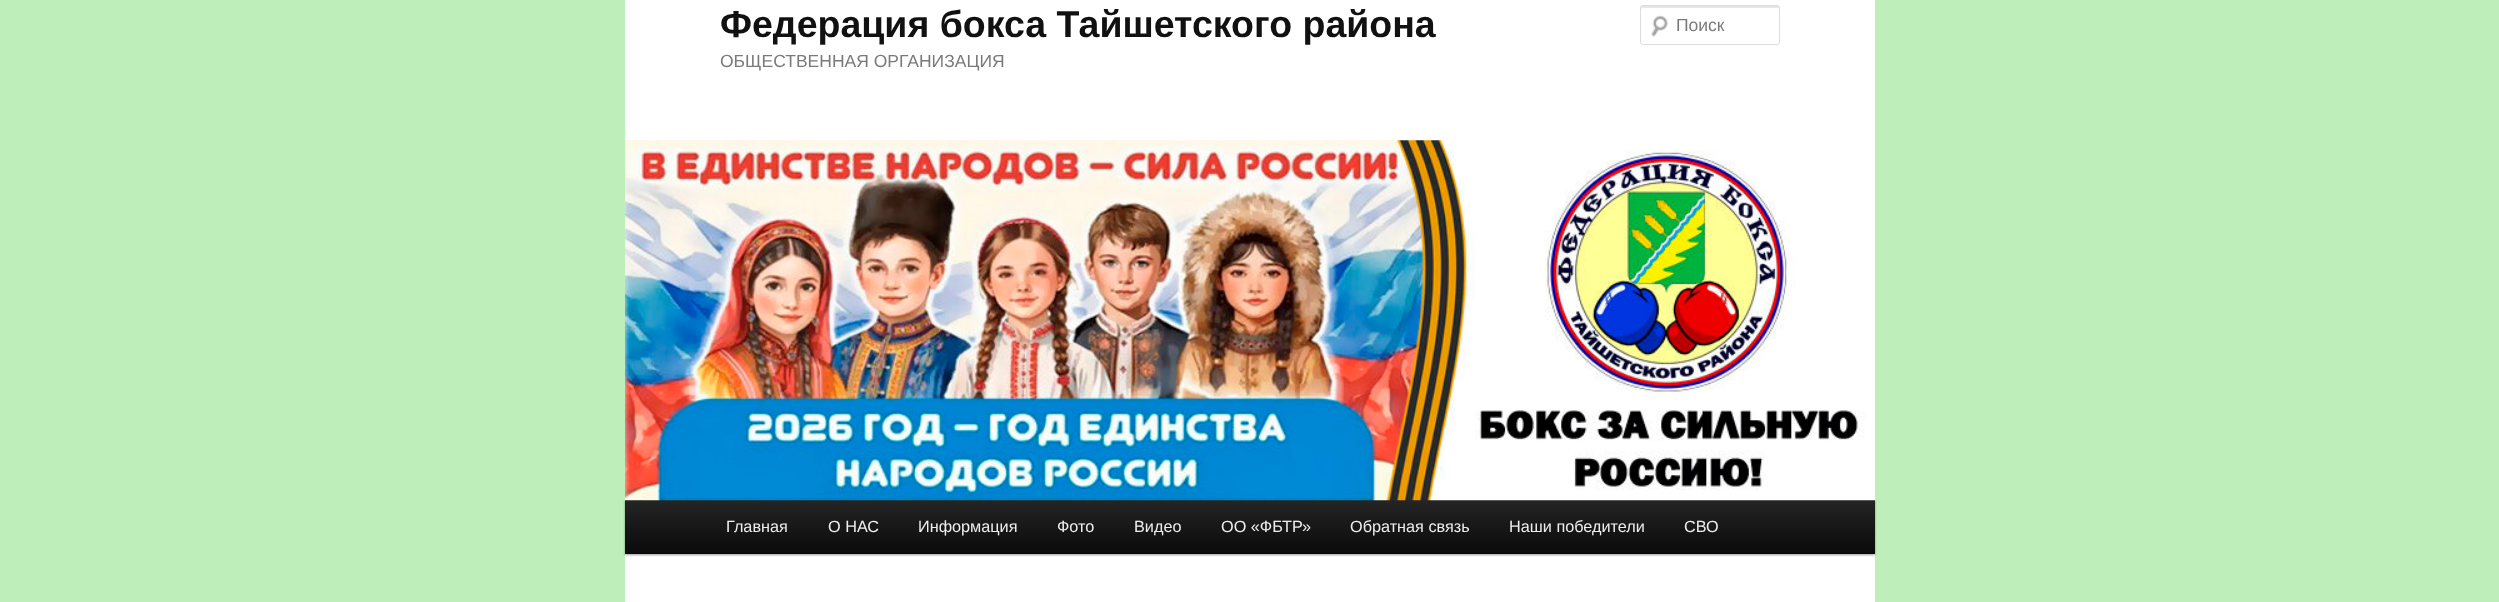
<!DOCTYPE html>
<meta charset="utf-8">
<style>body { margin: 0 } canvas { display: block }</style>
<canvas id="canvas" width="2499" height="602"></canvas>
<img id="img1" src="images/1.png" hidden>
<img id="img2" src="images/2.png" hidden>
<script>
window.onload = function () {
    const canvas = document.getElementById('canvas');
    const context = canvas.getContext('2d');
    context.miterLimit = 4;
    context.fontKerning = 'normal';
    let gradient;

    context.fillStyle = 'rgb(190, 239, 186)';
    context.fillRect(0, 0, 2499, 602);
    context.fillStyle = 'rgb(255, 255, 255)';
    context.fillRect(625, 0, 1250, 602);
    context.drawImage(document.getElementById('img1'), 1651, 15, 17, 22);
    context.fillStyle = 'rgb(230, 230, 230)';
    context.beginPath();
    context.moveTo(1642, 8);
    context.lineTo(1778, 8);
    context.lineTo(1779, 9);
    context.bezierCurveTo(1779, 8, 1779, 6, 1778, 6);
    context.lineTo(1642, 6);
    context.bezierCurveTo(1641, 7, 1641, 8, 1641, 9);
    context.closePath();
    context.fill();
    context.beginPath();
    context.roundRect(1640.5, 5.5, 139, 39, 2);
    context.strokeStyle = 'rgb(221, 221, 221)';
    context.stroke();
    context.fillStyle = 'rgba(0, 0, 0, 0.4)';
    context.filter = 'blur(1px)';
    context.beginPath();
    context.rect(625, 501, 1250, 54);
    context.fill();
    context.filter = 'none';
    gradient = context.createLinearGradient(1250, 500, 1250, 554);
    gradient.addColorStop(0, 'rgb(37, 37, 37)');
    gradient.addColorStop(1, 'rgb(10, 10, 10)');
    context.fillStyle = gradient;
    context.fillRect(625, 500, 1250, 54);
    context.drawImage(document.getElementById('img2'), 625, 140, 1250, 361);
    context.font = 'bold 37.5px Liberation Sans';
    context.fillStyle = 'rgb(17, 17, 17)';
    context.fillText('Федерация бокса Тайшетского района', 720, 37);
    context.font = '17.5px Liberation Sans';
    context.fillStyle = 'rgb(122, 122, 122)';
    context.fillText('ОБЩЕСТВЕННАЯ ОРГАНИЗАЦИЯ', 720, 67);
    context.fillText('Поиск', 1676, 31);
    context.font = '16.25px Liberation Sans';
    context.fillStyle = 'rgb(238, 238, 238)';
    context.fillText('Главная', 726, 532);
    context.fillText('О НАС', 828, 532);
    context.fillText('Информация', 918, 532);
    context.fillText('Фото', 1057, 532);
    context.fillText('Видео', 1134, 532);
    context.fillText('ОО «ФБТР»', 1221, 532);
    context.fillText('Обратная связь', 1350, 532);
    context.fillText('Наши победители', 1509, 532);
    context.fillText('СВО', 1684, 532);
};
</script>
